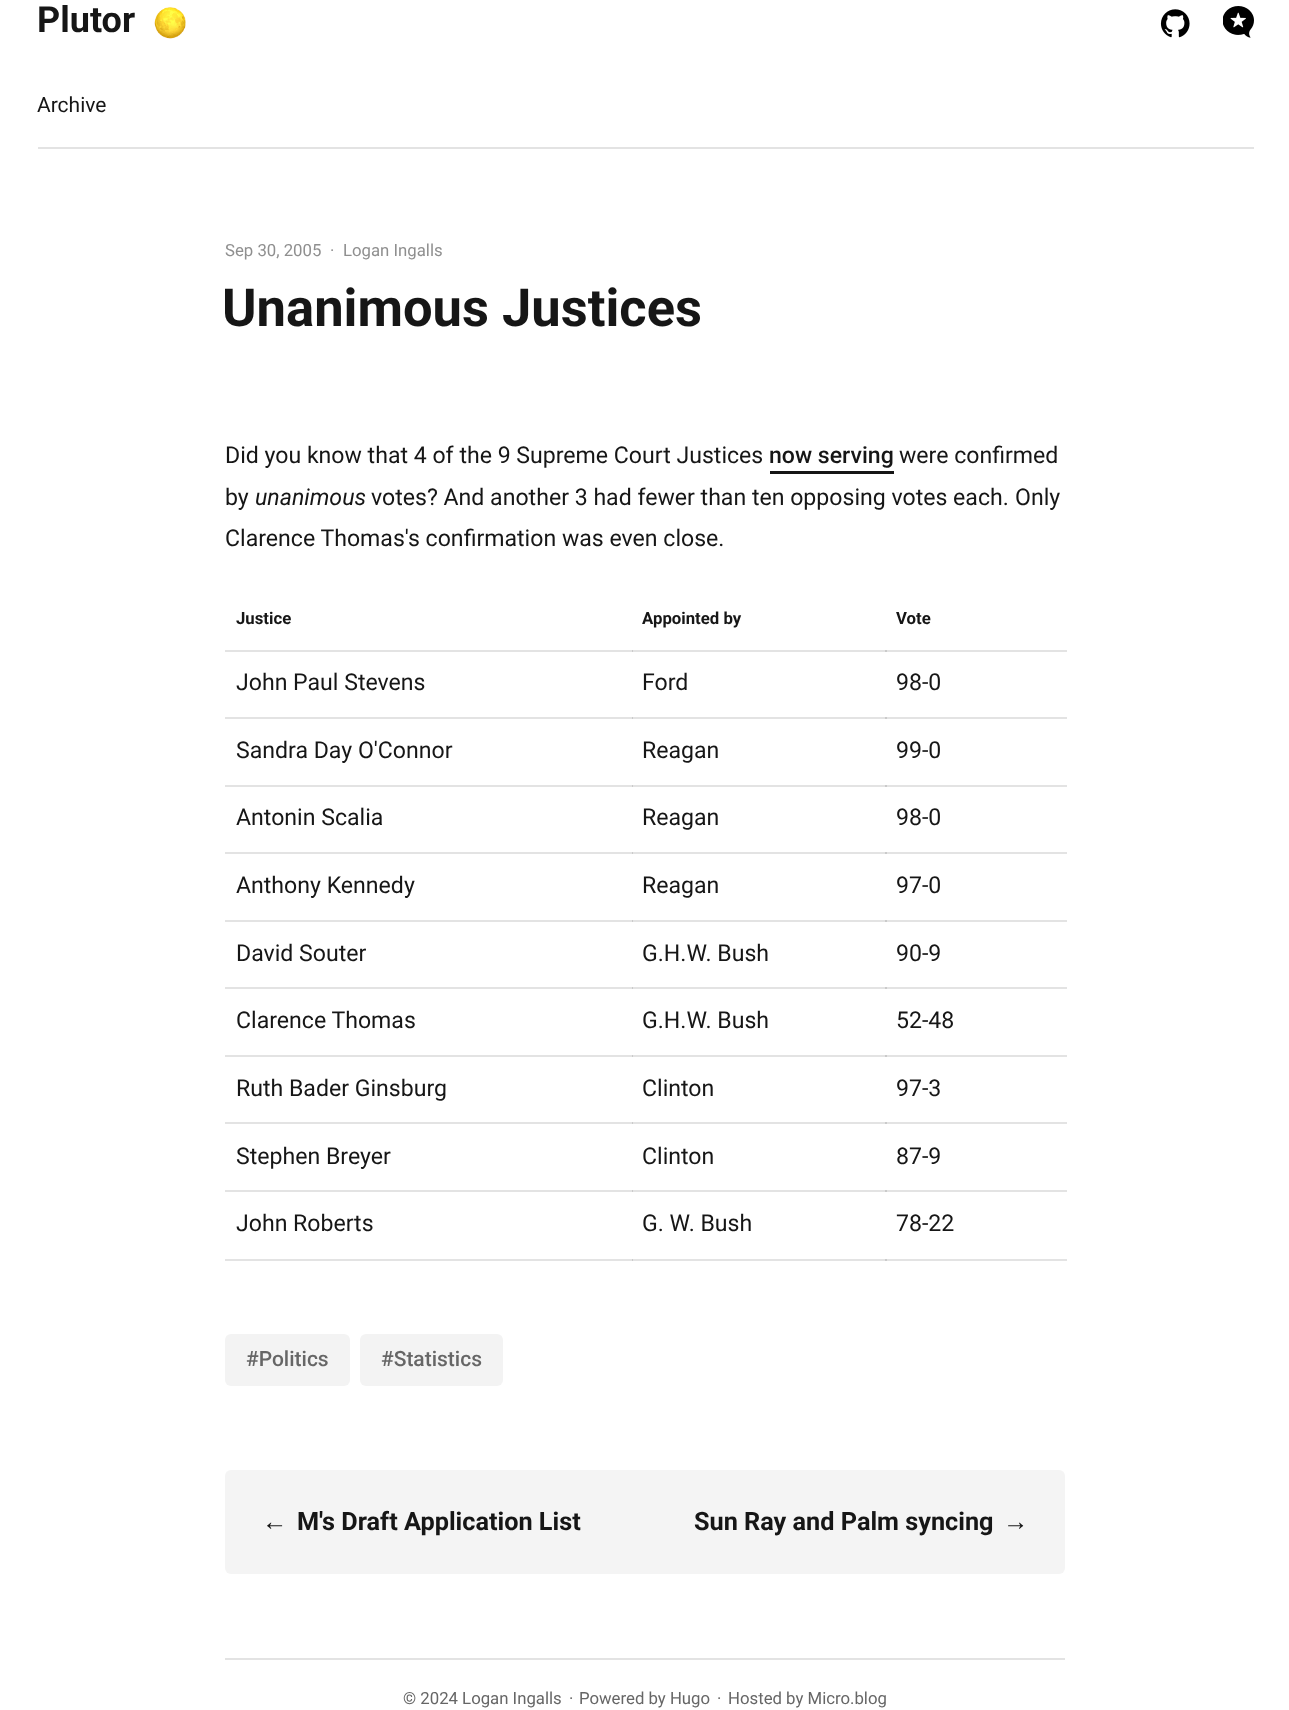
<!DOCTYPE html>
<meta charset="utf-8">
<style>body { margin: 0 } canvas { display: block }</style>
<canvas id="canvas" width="1289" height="1710"></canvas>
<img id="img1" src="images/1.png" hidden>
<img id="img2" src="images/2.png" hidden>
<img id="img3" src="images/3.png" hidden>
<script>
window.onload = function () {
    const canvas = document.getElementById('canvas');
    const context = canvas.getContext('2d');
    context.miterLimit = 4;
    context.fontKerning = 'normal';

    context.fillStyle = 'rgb(255, 255, 255)';
    context.fillRect(0, 0, 1289, 1710);
    context.fillStyle = 'rgb(227, 227, 227)';
    context.fillRect(225, 650, 842, 2);
    context.fillStyle = 'rgb(202, 202, 202)';
    context.fillRect(632, 650, 1, 2);
    context.fillStyle = 'rgb(227, 227, 227)';
    context.fillRect(225, 717, 842, 2);
    context.fillStyle = 'rgb(202, 202, 202)';
    context.fillRect(632, 717, 1, 2);
    context.fillStyle = 'rgb(227, 227, 227)';
    context.fillRect(225, 785, 842, 2);
    context.fillStyle = 'rgb(202, 202, 202)';
    context.fillRect(632, 785, 1, 2);
    context.fillStyle = 'rgb(227, 227, 227)';
    context.fillRect(225, 852, 842, 2);
    context.fillStyle = 'rgb(202, 202, 202)';
    context.fillRect(632, 852, 1, 2);
    context.fillStyle = 'rgb(227, 227, 227)';
    context.fillRect(225, 920, 842, 2);
    context.fillStyle = 'rgb(202, 202, 202)';
    context.fillRect(632, 920, 1, 2);
    context.fillStyle = 'rgb(227, 227, 227)';
    context.fillRect(225, 987, 842, 2);
    context.fillStyle = 'rgb(202, 202, 202)';
    context.fillRect(632, 987, 1, 2);
    context.fillStyle = 'rgb(227, 227, 227)';
    context.fillRect(225, 1055, 842, 2);
    context.fillStyle = 'rgb(202, 202, 202)';
    context.fillRect(632, 1055, 1, 2);
    context.fillStyle = 'rgb(227, 227, 227)';
    context.fillRect(225, 1122, 842, 2);
    context.fillStyle = 'rgb(202, 202, 202)';
    context.fillRect(632, 1122, 1, 2);
    context.fillStyle = 'rgb(227, 227, 227)';
    context.fillRect(225, 1190, 842, 2);
    context.fillStyle = 'rgb(202, 202, 202)';
    context.fillRect(632, 1190, 1, 2);
    context.fillStyle = 'rgb(227, 227, 227)';
    context.fillRect(225, 1259, 842, 2);
    context.fillStyle = 'rgb(202, 202, 202)';
    context.fillRect(632, 1259, 1, 2);
    context.drawImage(document.getElementById('img1'), 154, 7, 32, 32);
    context.drawImage(document.getElementById('img2'), 1160, 9, 30, 29);
    context.drawImage(document.getElementById('img3'), 1223, 6, 31, 32);
    context.fillStyle = 'rgb(227, 227, 227)';
    context.fillRect(38, 147, 1216, 2);
    context.fillStyle = 'rgb(22, 22, 22)';
    context.fillRect(770, 471, 124, 3);
    context.fillStyle = 'rgb(202, 202, 202)';
    context.fillRect(885, 650, 2, 2);
    context.fillRect(885, 717, 2, 2);
    context.fillRect(885, 785, 2, 2);
    context.fillRect(885, 852, 2, 2);
    context.fillRect(885, 920, 2, 2);
    context.fillRect(885, 987, 2, 2);
    context.fillRect(885, 1055, 2, 2);
    context.fillRect(885, 1122, 2, 2);
    context.fillRect(885, 1190, 2, 2);
    context.fillRect(885, 1259, 2, 2);
    context.fillStyle = 'rgb(243, 243, 243)';
    context.beginPath();
    context.roundRect(225, 1334, 125, 52, 6);
    context.fill();
    context.beginPath();
    context.roundRect(360, 1334, 143, 52, 6);
    context.fill();
    context.fillStyle = 'rgb(244, 244, 244)';
    context.beginPath();
    context.roundRect(225, 1470, 840, 104, 6);
    context.fill();
    context.fillStyle = 'rgb(227, 227, 227)';
    context.fillRect(225, 1658, 840, 2);
    context.font = 'bold 36px Roboto';
    context.fillStyle = 'rgb(22, 22, 22)';
    context.fillText('Plutor', 37, 32);
    context.font = '21px Roboto';
    context.fillText('Archive', 37, 112);
    context.font = '16.75px Roboto';
    context.fillStyle = 'rgb(143, 143, 143)';
    context.fillText('Sep 30, 2005', 225, 256);
    context.fillText('·', 330, 256);
    context.fillText('Logan Ingalls', 343, 256);
    context.font = 'bold 52.5px Roboto';
    context.fillStyle = 'rgb(22, 22, 22)';
    context.fillText('Unanimous Justices', 222, 326);
    context.font = '23.1px Roboto';
    context.fillText('Did you know that 4 of the 9 Supreme Court Justices', 225, 463);
    context.font = '500 23.1px Roboto';
    context.fillText('now serving', 769, 463);
    context.font = '23.1px Roboto';
    context.fillText('were confirmed', 899, 463);
    context.fillText('by', 225, 505);
    context.font = 'italic 23.1px Roboto';
    context.fillText('unanimous', 255, 505);
    context.font = '23.1px Roboto';
    context.fillText('votes? And another 3 had fewer than ten opposing votes each.', 371, 505);
    context.fillText('Only', 1015, 505);
    context.fillText('Clarence Thomas\'s confirmation was even close.', 225, 546);
    context.font = 'bold 16.75px Roboto';
    context.fillText('Justice', 236, 624);
    context.fillText('Appointed by', 642, 624);
    context.fillText('Vote', 896, 624);
    context.font = '23.1px Roboto';
    context.fillText('John Paul Stevens', 236, 690);
    context.fillText('Ford', 642, 690);
    context.fillText('98-0', 896, 690);
    context.fillText('Sandra Day O\'Connor', 236, 758);
    context.fillText('Reagan', 642, 758);
    context.fillText('99-0', 896, 758);
    context.fillText('Antonin Scalia', 236, 825);
    context.fillText('Reagan', 642, 825);
    context.fillText('98-0', 896, 825);
    context.fillText('Anthony Kennedy', 236, 893);
    context.fillText('Reagan', 642, 893);
    context.fillText('97-0', 896, 893);
    context.fillText('David Souter', 236, 961);
    context.fillText('G.H.W. Bush', 642, 961);
    context.fillText('90-9', 896, 961);
    context.fillText('Clarence Thomas', 236, 1028);
    context.fillText('G.H.W. Bush', 642, 1028);
    context.fillText('52-48', 896, 1028);
    context.fillText('Ruth Bader Ginsburg', 236, 1096);
    context.fillText('Clinton', 642, 1096);
    context.fillText('97-3', 896, 1096);
    context.fillText('Stephen Breyer', 236, 1164);
    context.fillText('Clinton', 642, 1164);
    context.fillText('87-9', 896, 1164);
    context.fillText('John Roberts', 236, 1231);
    context.fillText('G. W. Bush', 642, 1231);
    context.fillText('78-22', 896, 1231);
    context.font = '500 21px Roboto';
    context.fillStyle = 'rgb(102, 102, 102)';
    context.fillText('#Politics', 246, 1366);
    context.fillText('#Statistics', 381, 1366);
    context.font = 'bold 25.25px Liberation Sans';
    context.fillStyle = 'rgb(22, 22, 22)';
    context.fillText('←', 262, 1530);
    context.font = 'bold 25.25px Roboto';
    context.fillText('M\'s Draft Application List', 297, 1530);
    context.fillText('Sun Ray and Palm syncing', 694, 1530);
    context.font = 'bold 25.25px Liberation Sans';
    context.fillText('→', 1003, 1530);
    context.font = '16.75px Roboto';
    context.fillStyle = 'rgb(102, 102, 102)';
    context.fillText('© 2024 Logan Ingalls', 403, 1704);
    context.fillText('·', 569, 1704);
    context.fillText('Powered by Hugo️️', 579, 1704);
    context.fillText('·', 717, 1704);
    context.fillText('Hosted by Micro.blog', 728, 1704);
};
</script>
